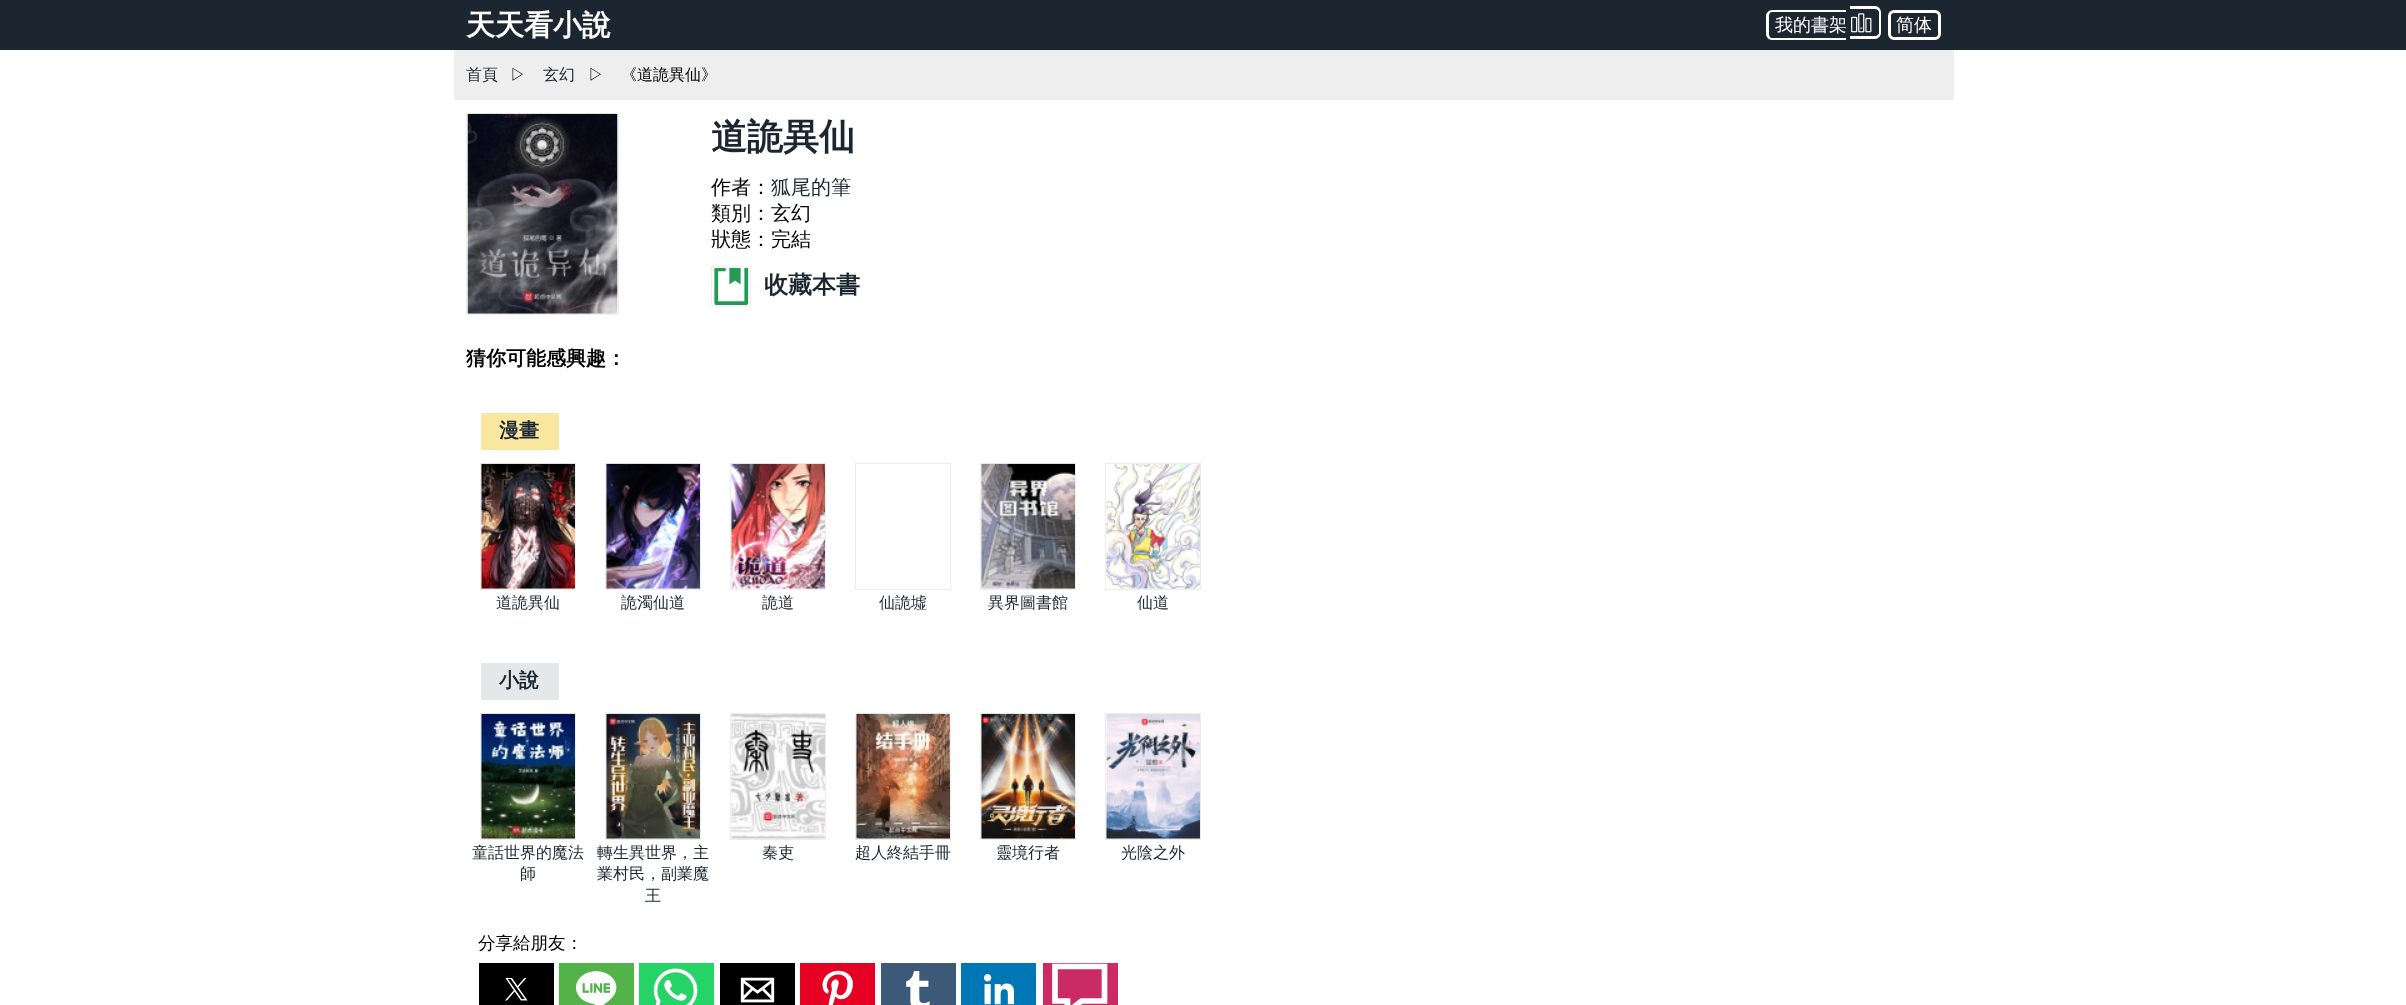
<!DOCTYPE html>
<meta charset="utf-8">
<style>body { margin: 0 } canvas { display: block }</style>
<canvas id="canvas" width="2406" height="1005"></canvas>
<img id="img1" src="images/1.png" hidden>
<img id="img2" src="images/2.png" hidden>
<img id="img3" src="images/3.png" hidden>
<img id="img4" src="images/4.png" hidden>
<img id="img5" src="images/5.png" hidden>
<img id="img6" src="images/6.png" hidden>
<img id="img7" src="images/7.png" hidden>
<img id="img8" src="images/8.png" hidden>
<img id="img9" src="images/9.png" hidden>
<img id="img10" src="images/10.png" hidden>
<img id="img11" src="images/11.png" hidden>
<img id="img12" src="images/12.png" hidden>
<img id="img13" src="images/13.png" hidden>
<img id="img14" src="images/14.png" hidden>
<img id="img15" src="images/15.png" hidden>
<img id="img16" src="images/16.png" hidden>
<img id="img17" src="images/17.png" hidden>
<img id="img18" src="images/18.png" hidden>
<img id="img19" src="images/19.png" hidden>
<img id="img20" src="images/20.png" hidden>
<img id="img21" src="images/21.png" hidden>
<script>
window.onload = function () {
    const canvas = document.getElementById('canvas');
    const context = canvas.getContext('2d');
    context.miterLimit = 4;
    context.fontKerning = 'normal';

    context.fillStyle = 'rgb(255, 255, 255)';
    context.fillRect(0, 0, 2406, 1005);
    context.fillStyle = 'rgb(27, 38, 49)';
    context.fillRect(0, 0, 2406, 50);
    context.fillStyle = 'rgb(255, 255, 255)';
    context.beginPath();
    context.moveTo(1772, 10);
    context.lineTo(1846, 10);
    context.lineTo(1846, 40);
    context.lineTo(1772, 40);
    context.bezierCurveTo(1769, 40, 1766, 37, 1766, 34);
    context.lineTo(1766, 16);
    context.bezierCurveTo(1766, 13, 1769, 10, 1772, 10);
    context.closePath();
    context.moveTo(1772, 12);
    context.lineTo(1846, 12);
    context.lineTo(1846, 38);
    context.lineTo(1772, 38);
    context.bezierCurveTo(1770, 38, 1769, 36, 1769, 34);
    context.lineTo(1769, 16);
    context.bezierCurveTo(1769, 14, 1770, 12, 1772, 12);
    context.closePath();
    context.fill('evenodd');
    context.beginPath();
    context.moveTo(1850, 6);
    context.lineTo(1875, 6);
    context.bezierCurveTo(1878.5, 6, 1881, 9, 1881, 12.5);
    context.lineTo(1881, 32.5);
    context.bezierCurveTo(1881, 36, 1878.5, 39, 1875, 39);
    context.lineTo(1850, 39);
    context.closePath();
    context.moveTo(1850, 9);
    context.lineTo(1875, 9);
    context.bezierCurveTo(1877, 9, 1879, 10.5, 1879, 12.5);
    context.lineTo(1879, 32.5);
    context.bezierCurveTo(1879, 34.5, 1877, 36, 1875, 36);
    context.lineTo(1850, 36);
    context.closePath();
    context.fill('evenodd');
    context.drawImage(document.getElementById('img1'), 1851, 13, 21, 20);
    context.beginPath();
    context.roundRect(1889.5, 11.5, 50, 27, 4.5);
    context.strokeStyle = 'rgb(255, 255, 255)';
    context.lineWidth = 3;
    context.stroke();
    context.fillStyle = 'rgb(238, 238, 238)';
    context.fillRect(454, 50, 1500, 50);
    context.strokeStyle = 'rgb(238, 238, 238)';
    context.lineWidth = 1;
    context.strokeRect(466.5, 113.5, 152, 201);
    context.drawImage(document.getElementById('img2'), 467, 113, 151, 201);
    context.strokeRect(711.5, 266.5, 39, 39);
    context.drawImage(document.getElementById('img3'), 714, 268, 35, 37);
    context.fillStyle = 'rgb(249, 231, 159)';
    context.fillRect(481, 413, 78, 37);
    context.strokeRect(480.5, 463.5, 95, 126);
    context.drawImage(document.getElementById('img4'), 481, 463, 94, 126);
    context.strokeRect(605.5, 463.5, 95, 126);
    context.drawImage(document.getElementById('img5'), 606, 463, 94, 126);
    context.strokeRect(730.5, 463.5, 95, 126);
    context.drawImage(document.getElementById('img6'), 731, 463, 94, 126);
    context.strokeRect(855.5, 463.5, 95, 126);
    context.strokeRect(980.5, 463.5, 95, 126);
    context.drawImage(document.getElementById('img7'), 981, 463, 94, 126);
    context.strokeRect(1105.5, 463.5, 95, 126);
    context.drawImage(document.getElementById('img8'), 1106, 464, 94, 125);
    context.fillStyle = 'rgb(229, 231, 233)';
    context.fillRect(481, 663, 78, 37);
    context.strokeRect(480.5, 713.5, 95, 126);
    context.drawImage(document.getElementById('img9'), 481, 713, 94, 126);
    context.strokeRect(605.5, 713.5, 95, 126);
    context.drawImage(document.getElementById('img10'), 606, 713, 94, 126);
    context.strokeRect(730.5, 713.5, 95, 126);
    context.drawImage(document.getElementById('img11'), 731, 714, 94, 125);
    context.strokeRect(855.5, 713.5, 95, 126);
    context.drawImage(document.getElementById('img12'), 856, 713, 94, 126);
    context.strokeRect(980.5, 713.5, 95, 126);
    context.drawImage(document.getElementById('img13'), 981, 713, 94, 126);
    context.strokeRect(1105.5, 713.5, 95, 126);
    context.drawImage(document.getElementById('img14'), 1106, 714, 94, 125);
    context.fillStyle = 'rgb(0, 0, 0)';
    context.fillRect(479, 963, 75, 42);
    context.drawImage(document.getElementById('img15'), 505, 978, 23, 23);
    context.fillStyle = 'rgb(82, 180, 72)';
    context.fillRect(559, 963, 75, 42);
    context.drawImage(document.getElementById('img16'), 575, 971, 42, 34);
    context.fillStyle = 'rgb(37, 211, 102)';
    context.fillRect(639, 963, 75, 42);
    context.drawImage(document.getElementById('img17'), 653, 968, 45, 37);
    context.fillStyle = 'rgb(0, 0, 0)';
    context.fillRect(720, 963, 75, 42);
    context.drawImage(document.getElementById('img18'), 740, 977, 35, 26);
    context.fillStyle = 'rgb(230, 0, 35)';
    context.fillRect(800, 963, 75, 42);
    context.drawImage(document.getElementById('img19'), 822, 970, 31, 35);
    context.fillStyle = 'rgb(60, 90, 119)';
    context.fillRect(881, 963, 75, 42);
    context.drawImage(document.getElementById('img20'), 906, 971, 24, 34);
    context.fillStyle = 'rgb(0, 119, 181)';
    context.fillRect(961, 963, 75, 42);
    context.drawImage(document.getElementById('img21'), 983, 974, 31, 31);
    context.fillStyle = 'rgb(202, 43, 99)';
    context.fillRect(1043, 963, 75, 42);
    context.beginPath();
    context.moveTo(1067.5, 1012);
    context.lineTo(1067.5, 1001);
    context.lineTo(1055, 1001);
    context.lineTo(1055, 966.5);
    context.lineTo(1104.5, 966.5);
    context.lineTo(1104.5, 1001);
    context.lineTo(1081.5, 1001);
    context.closePath();
    context.strokeStyle = 'rgb(255, 255, 255)';
    context.lineWidth = 5.7;
    context.stroke();
    context.font = 'bold 29px WenQuanYi Zen Hei';
    context.fillStyle = 'rgb(255, 255, 255)';
    context.fillText('天天看小說', 466, 35);
    context.font = '500 18px WenQuanYi Zen Hei';
    context.fillText('我的書架', 1775, 31);
    context.fillText('简体', 1896, 31);
    context.font = '500 16px WenQuanYi Zen Hei';
    context.fillStyle = 'rgb(27, 38, 49)';
    context.fillText('首頁', 466, 80);
    context.fillStyle = 'rgb(0, 0, 0)';
    context.fillText('▷', 510, 80);
    context.fillStyle = 'rgb(27, 38, 49)';
    context.fillText('玄幻', 543, 80);
    context.fillStyle = 'rgb(0, 0, 0)';
    context.fillText('▷', 588, 80);
    context.fillText('《道詭異仙》', 621, 80);
    context.font = 'bold 36px WenQuanYi Zen Hei';
    context.fillStyle = 'rgb(27, 38, 49)';
    context.fillText('道詭異仙', 711, 149);
    context.font = '500 20px WenQuanYi Zen Hei';
    context.fillStyle = 'rgb(0, 0, 0)';
    context.fillText('作者：', 711, 194);
    context.fillStyle = 'rgb(27, 38, 49)';
    context.fillText('狐尾的筆', 771, 194);
    context.fillStyle = 'rgb(0, 0, 0)';
    context.fillText('類別：玄幻', 711, 220);
    context.fillText('狀態：完結', 711, 246);
    context.font = 'bold 24px WenQuanYi Zen Hei';
    context.fillStyle = 'rgb(27, 38, 49)';
    context.fillText('收藏本書', 764, 293);
    context.font = 'bold 20px WenQuanYi Zen Hei';
    context.fillStyle = 'rgb(0, 0, 0)';
    context.fillText('猜你可能感興趣：', 466, 365);
    context.fillStyle = 'rgb(27, 38, 49)';
    context.fillText('漫畫', 499, 437);
    context.font = '500 16px WenQuanYi Zen Hei';
    context.fillText('道詭異仙', 496, 608);
    context.fillText('詭濁仙道', 621, 608);
    context.fillText('詭道', 762, 608);
    context.fillText('仙詭墟', 879, 608);
    context.fillText('異界圖書館', 988, 608);
    context.fillText('仙道', 1137, 608);
    context.font = 'bold 20px WenQuanYi Zen Hei';
    context.fillText('小說', 499, 687);
    context.font = '500 16px WenQuanYi Zen Hei';
    context.fillText('童話世界的魔法', 472, 858);
    context.fillText('師', 520, 879);
    context.fillText('轉生異世界，主', 597, 858);
    context.fillText('業村民，副業魔', 597, 879);
    context.fillText('王', 645, 901);
    context.fillText('秦吏', 762, 858);
    context.fillText('超人終結手冊', 855, 858);
    context.fillText('靈境行者', 996, 858);
    context.fillText('光陰之外', 1121, 858);
    context.font = '500 17.5px WenQuanYi Zen Hei';
    context.fillStyle = 'rgb(0, 0, 0)';
    context.fillText('分享給朋友：', 478, 949);
};
</script>
